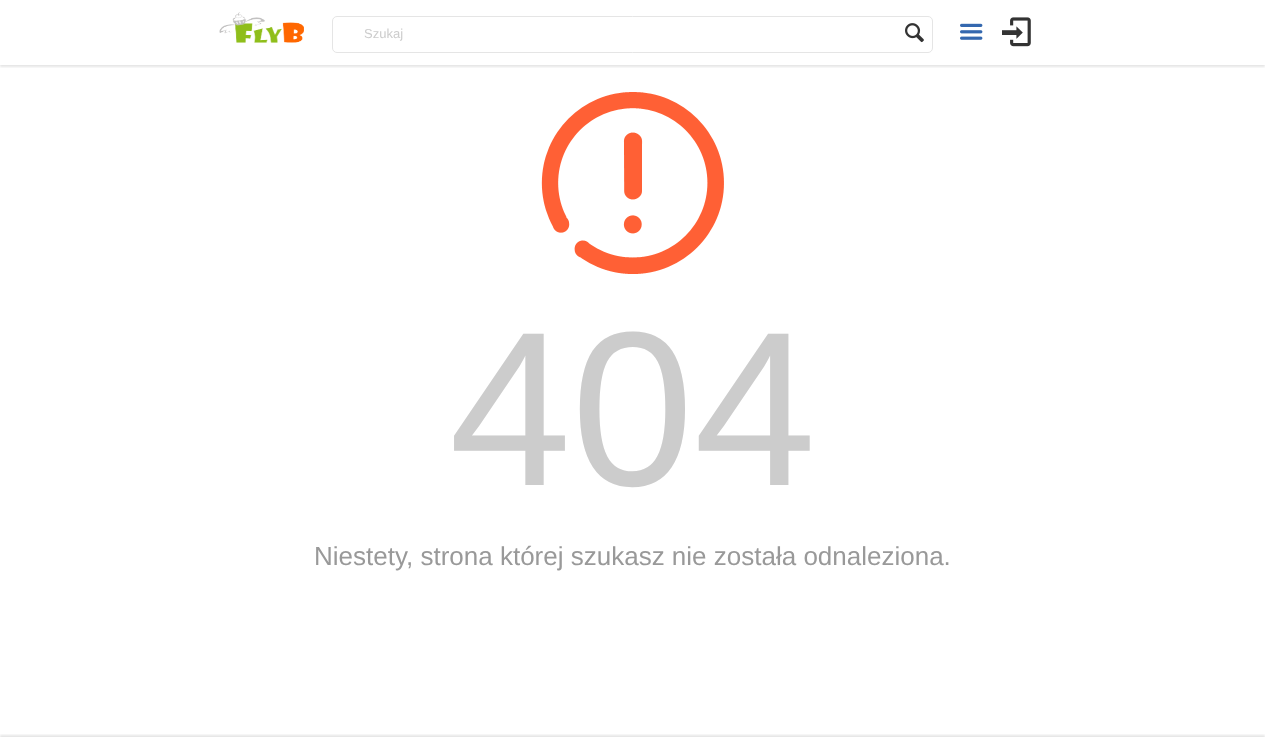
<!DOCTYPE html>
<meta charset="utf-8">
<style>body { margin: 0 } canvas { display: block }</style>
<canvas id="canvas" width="1265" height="742"></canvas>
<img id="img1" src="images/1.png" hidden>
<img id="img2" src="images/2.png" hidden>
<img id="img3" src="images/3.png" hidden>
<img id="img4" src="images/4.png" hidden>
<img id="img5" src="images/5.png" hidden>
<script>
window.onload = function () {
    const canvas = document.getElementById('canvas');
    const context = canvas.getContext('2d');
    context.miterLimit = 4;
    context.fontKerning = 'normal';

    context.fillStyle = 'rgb(255, 255, 255)';
    context.fillRect(0, 0, 1265, 742);
    context.save();
    context.beginPath();
    context.rect(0, 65, 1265, 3);
    context.clip();
    context.fillStyle = 'rgba(0, 0, 0, 0.1)';
    context.filter = 'blur(1px)';
    context.beginPath();
    context.rect(0, 2, 1265, 65);
    context.fill();
    context.filter = 'none';
    context.restore();
    context.drawImage(document.getElementById('img1'), 219, 12, 85, 31);
    context.beginPath();
    context.roundRect(332.5, 16.5, 600, 36, 4.5);
    context.strokeStyle = 'rgb(229, 229, 229)';
    context.stroke();
    context.drawImage(document.getElementById('img2'), 905, 23, 19, 20);
    context.drawImage(document.getElementById('img3'), 960, 23, 23, 17);
    context.drawImage(document.getElementById('img4'), 1002, 17, 29, 30);
    context.drawImage(document.getElementById('img5'), 541, 92, 183, 182);
    context.save();
    context.beginPath();
    context.rect(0, 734, 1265, 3);
    context.clip();
    context.fillStyle = 'rgba(0, 0, 0, 0.1)';
    context.filter = 'blur(1px)';
    context.beginPath();
    context.rect(0, 735, 1265, 5);
    context.fill();
    context.filter = 'none';
    context.restore();
    context.font = '13px Liberation Sans';
    context.fillStyle = 'rgb(204, 204, 204)';
    context.fillText('Szukaj', 364, 38);
    context.font = '220px Liberation Sans';
    context.fillText('404', 449, 485);
    context.font = '26px Liberation Sans';
    context.fillStyle = 'rgb(153, 153, 153)';
    context.fillText('Niestety, strona której szukasz nie została odnaleziona.', 314, 565);
};
</script>
